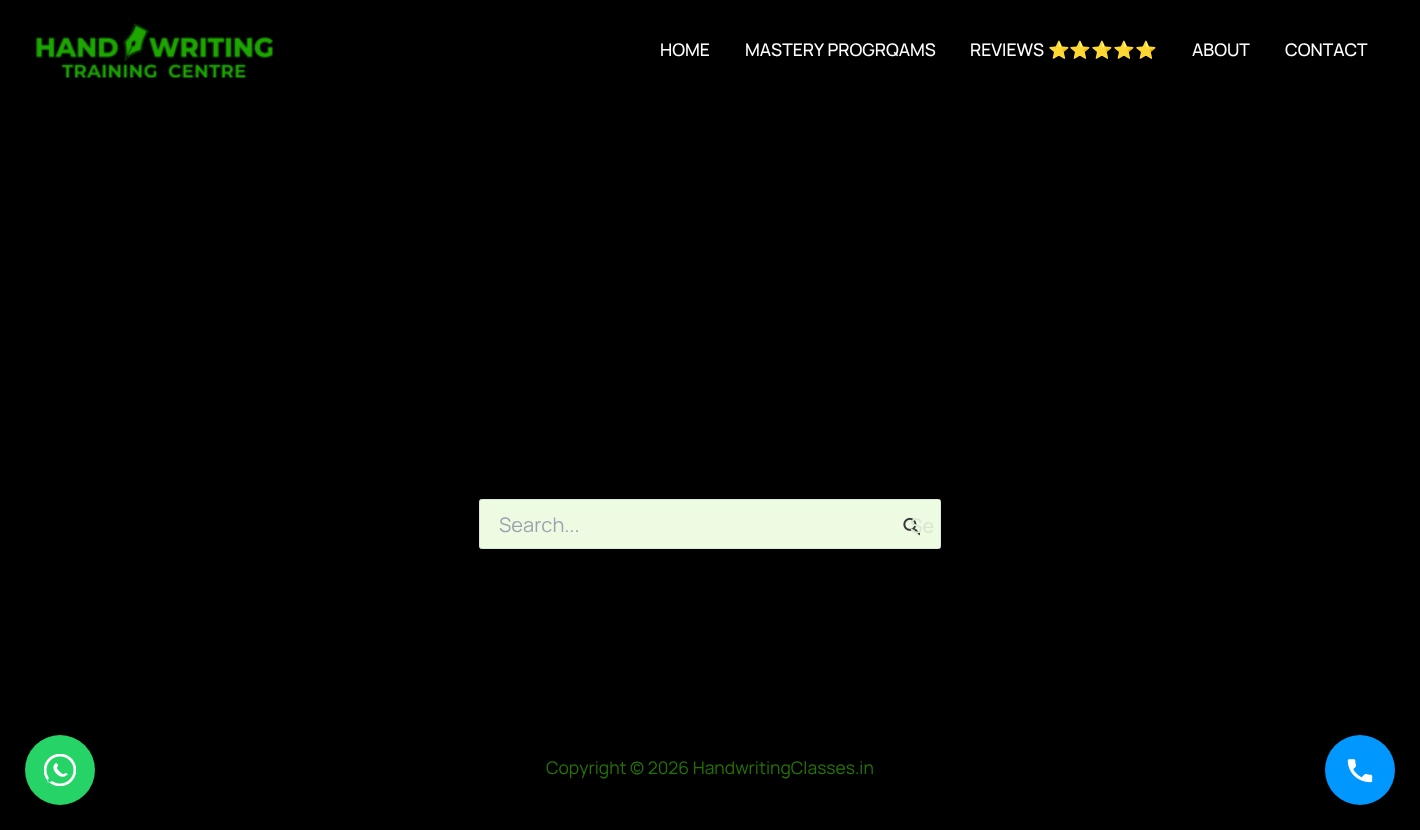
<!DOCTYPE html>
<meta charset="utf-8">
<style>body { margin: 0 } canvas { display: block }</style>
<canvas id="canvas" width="1420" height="830"></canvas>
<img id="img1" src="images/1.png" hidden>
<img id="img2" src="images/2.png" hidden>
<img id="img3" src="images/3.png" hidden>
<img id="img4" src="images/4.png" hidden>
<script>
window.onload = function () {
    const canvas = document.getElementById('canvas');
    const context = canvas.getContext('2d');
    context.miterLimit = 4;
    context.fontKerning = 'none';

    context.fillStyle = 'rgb(0, 0, 0)';
    context.fillRect(0, 0, 1420, 830);
    context.fillStyle = 'rgb(37, 211, 102)';
    context.beginPath();
    context.arc(60, 770, 35, 0, 2 * Math.PI);
    context.fill();
    context.drawImage(document.getElementById('img1'), 44, 754, 32, 32);
    context.drawImage(document.getElementById('img2'), 35, 23, 238, 55);
    context.fillStyle = 'rgb(237, 251, 226)';
    context.beginPath();
    context.roundRect(479.5, 499.5, 461, 49, 2);
    context.fill();
    context.strokeStyle = 'rgb(213, 234, 216)';
    context.stroke();
    context.drawImage(document.getElementById('img3'), 903, 517, 17, 19);
    context.fillStyle = 'rgb(0, 151, 255)';
    context.beginPath();
    context.arc(1360, 770, 35, 0, 2 * Math.PI);
    context.fill();
    context.drawImage(document.getElementById('img4'), 1347, 759, 26, 24);
    context.font = '500 17.5px Manrope';
    context.fillStyle = 'rgb(255, 255, 255)';
    context.fillText('HOME', 660, 56);
    context.fillText('MASTERY PROGRQAMS', 745, 56);
    context.fillText('REVIEWS', 970, 56);
    context.font = '17.5px Noto Color Emoji';
    context.fillText('⭐⭐⭐⭐⭐', 1048, 56);
    context.font = '500 17.5px Manrope';
    context.fillText('ABOUT', 1192, 56);
    context.fillText('CONTACT', 1285, 56);
    context.font = '20px Manrope';
    context.fillStyle = 'rgb(156, 163, 175)';
    context.fillText('Search...', 499, 532);
    context.font = '500 20px Manrope';
    context.fillStyle = 'rgb(219, 232, 209)';
    context.fillText('Se', 910, 533);
    context.font = '17.5px Manrope';
    context.fillStyle = 'rgb(37, 116, 0)';
    context.fillText('Copyright © 2026 HandwritingClasses.in', 546, 774);
};
</script>
